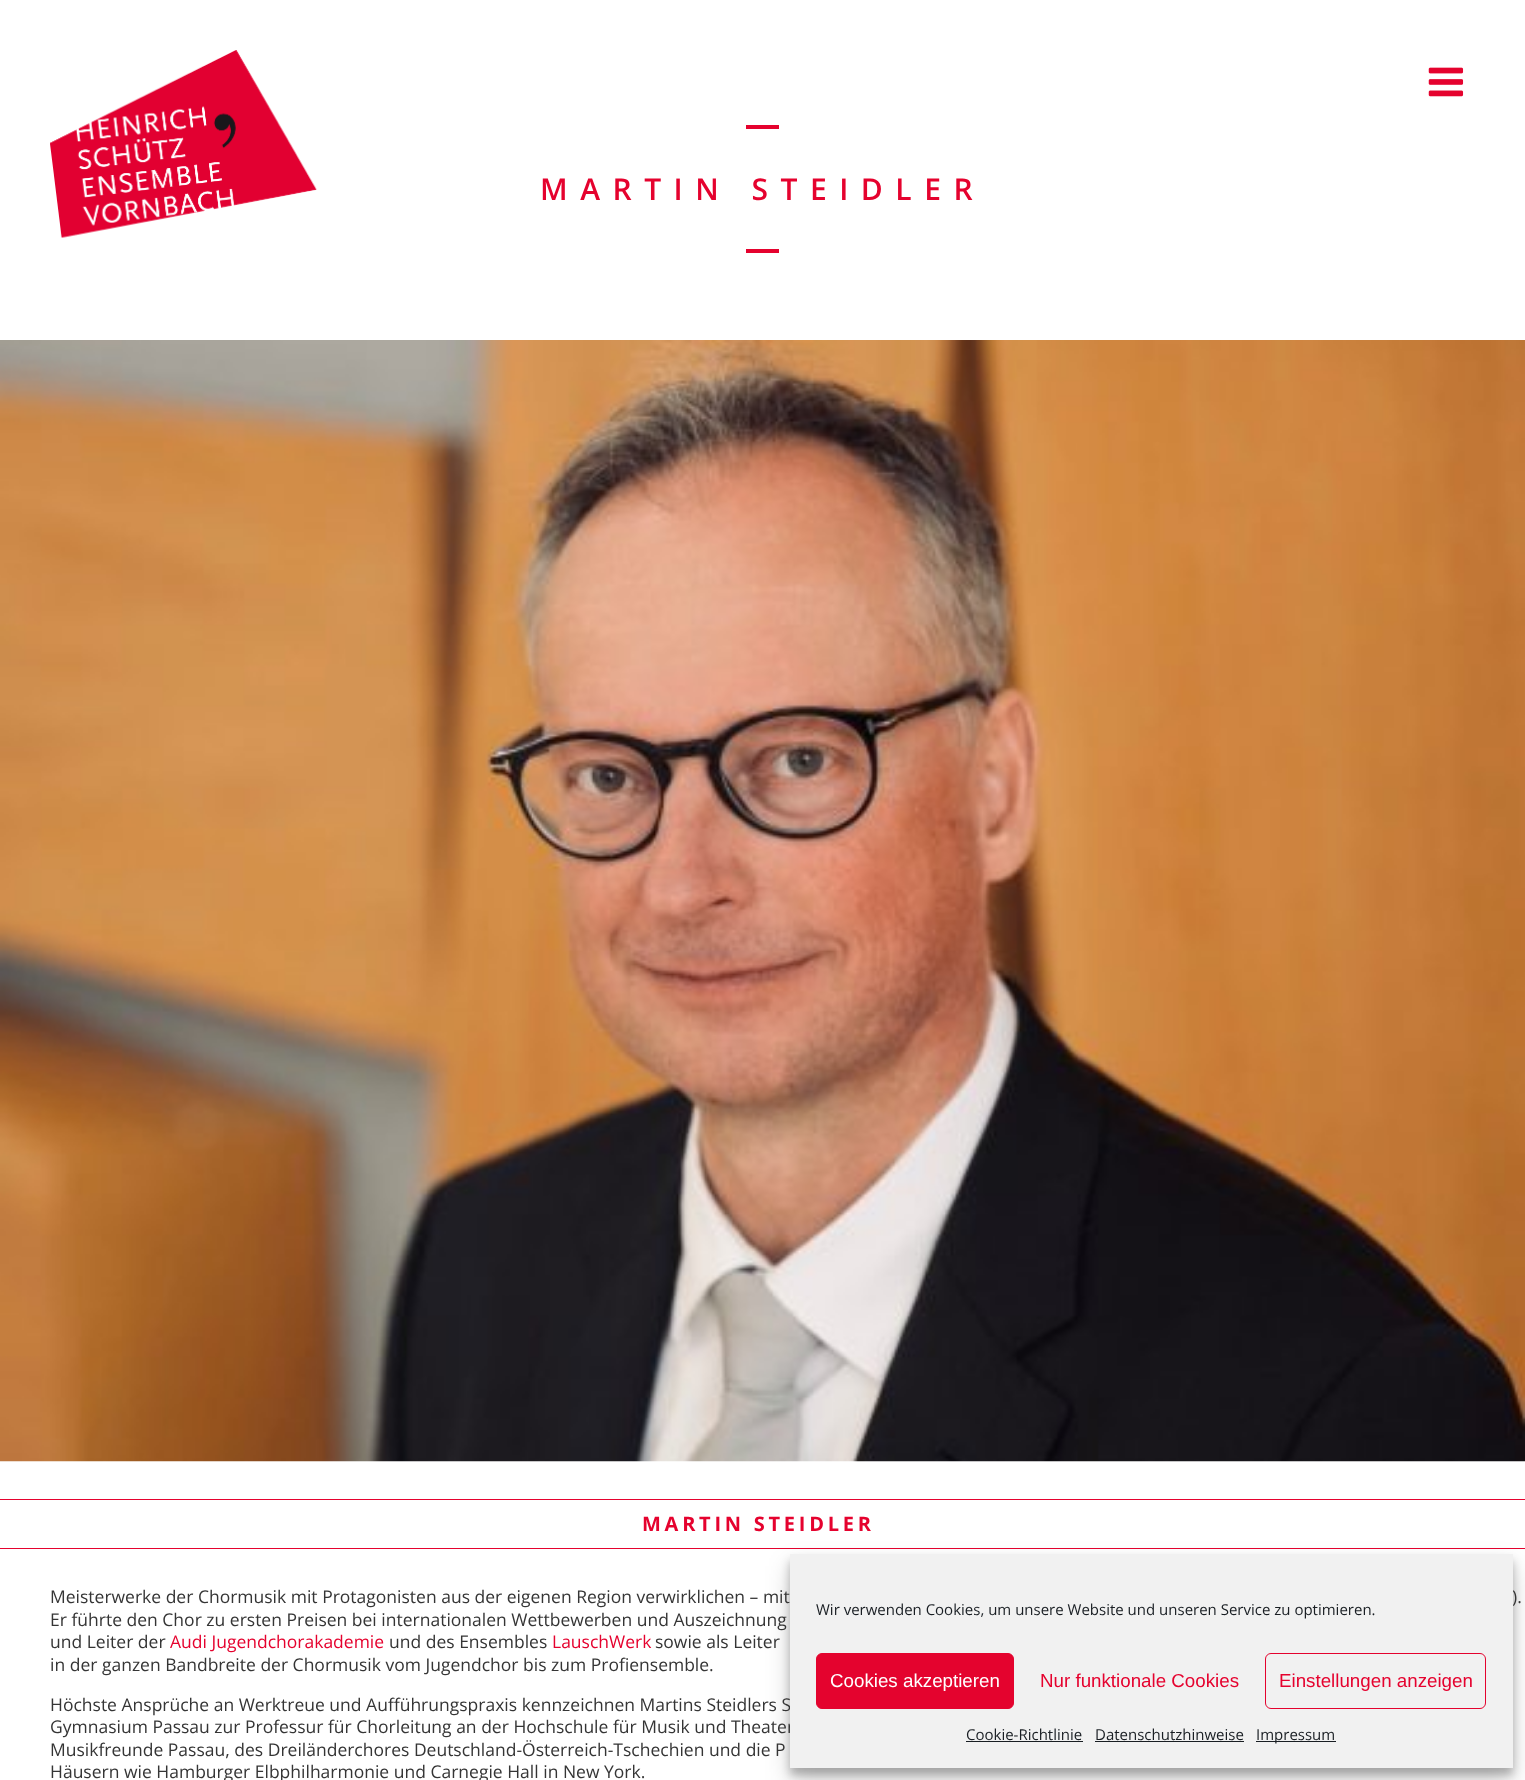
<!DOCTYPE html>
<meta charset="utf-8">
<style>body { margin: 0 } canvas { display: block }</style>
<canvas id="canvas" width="1525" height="1780"></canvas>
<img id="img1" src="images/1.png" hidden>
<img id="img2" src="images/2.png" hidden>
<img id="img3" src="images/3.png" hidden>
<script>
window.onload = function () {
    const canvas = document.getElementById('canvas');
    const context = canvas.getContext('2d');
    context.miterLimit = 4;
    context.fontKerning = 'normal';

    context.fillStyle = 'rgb(255, 255, 255)';
    context.fillRect(0, 0, 1525, 1780);
    context.drawImage(document.getElementById('img1'), 50, 50, 267, 188);
    context.drawImage(document.getElementById('img2'), 1428, 67, 36, 30);
    context.fillStyle = 'rgb(229, 2, 46)';
    context.fillRect(746, 125, 33, 4);
    context.fillRect(746, 249, 33, 4);
    context.drawImage(document.getElementById('img3'), 0, 340, 1525, 1122);
    context.fillRect(0, 1499, 1525, 1);
    context.fillRect(0, 1548, 1525, 1);
    context.fillStyle = 'rgba(0, 0, 0, 0.23)';
    context.filter = 'blur(4px)';
    context.beginPath();
    context.rect(790, 1561, 723, 214);
    context.fill();
    context.filter = 'none';
    context.fillStyle = 'rgba(0, 0, 0, 0.19)';
    context.filter = 'blur(12.5px)';
    context.beginPath();
    context.rect(790, 1566, 723, 214);
    context.fill();
    context.filter = 'none';
    context.letterSpacing = '12.5px';
    context.font = '600 30px Open Sans';
    context.fillStyle = 'rgb(229, 2, 46)';
    context.fillText('MARTIN STEIDLER', 540, 200);
    context.letterSpacing = '3.75px';
    context.font = 'bold 20px Open Sans';
    context.fillText('MARTIN STEIDLER', 642, 1531);
    context.letterSpacing = '0px';
    context.font = '17.5px Open Sans';
    context.fillStyle = 'rgb(53, 53, 53)';
    context.fillText('Meisterwerke der Chormusik mit Protagonisten aus der eigenen Region verwirklichen – mit', 50, 1603);
    context.fillText(').', 1512, 1603);
    context.fillText('Er führte den Chor zu ersten Preisen bei internationalen Wettbewerben und Auszeichnung', 50, 1626);
    context.fillText('und Leiter der', 50, 1648);
    context.fillStyle = 'rgb(229, 2, 46)';
    context.fillText('Audi Jugendchorakademie', 170, 1648);
    context.fillStyle = 'rgb(53, 53, 53)';
    context.fillText('und des Ensembles', 389, 1648);
    context.fillStyle = 'rgb(229, 2, 46)';
    context.fillText('LauschWerk', 552, 1648);
    context.fillStyle = 'rgb(53, 53, 53)';
    context.fillText('sowie als Leiter', 655, 1648);
    context.fillText('in der ganzen Bandbreite der Chormusik vom Jugendchor bis zum Profiensemble.', 50, 1671);
    context.fillText('Höchste Ansprüche an Werktreue und Aufführungspraxis kennzeichnen Martins Steidlers S', 50, 1711);
    context.fillText('Gymnasium Passau zur Professur für Chorleitung an der Hochschule für Musik und Theater', 50, 1733);
    context.fillText('Musikfreunde Passau, des Dreiländerchores Deutschland-Österreich-Tschechien und die P', 50, 1756);
    context.fillText('Häusern wie Hamburger Elbphilharmonie und Carnegie Hall in New York.', 50, 1778);
    context.fillStyle = 'rgb(241, 241, 241)';
    context.fillRect(790, 1554, 723, 214);
    context.font = '15px Open Sans';
    context.fillStyle = 'rgb(25, 30, 35)';
    context.fillText('Wir verwenden Cookies, um unsere Website und unseren Service zu optimieren.', 816, 1615);
    context.fillStyle = 'rgb(228, 3, 46)';
    context.beginPath();
    context.roundRect(816.5, 1653.5, 197, 55, 5.5);
    context.fill();
    context.strokeStyle = 'rgb(228, 3, 46)';
    context.stroke();
    context.font = '18.75px Liberation Sans';
    context.fillStyle = 'rgb(255, 255, 255)';
    context.fillText('Cookies akzeptieren', 830, 1687);
    context.fillStyle = 'rgb(229, 2, 46)';
    context.fillText('Nur funktionale Cookies', 1040, 1687);
    context.beginPath();
    context.roundRect(1265.5, 1653.5, 220, 55, 5.5);
    context.stroke();
    context.fillText('Einstellungen anzeigen', 1279, 1687);
    context.font = '15px Open Sans';
    context.fillStyle = 'rgb(25, 30, 35)';
    context.fillText('Cookie-Richtlinie', 966, 1740);
    context.fillRect(966, 1741, 117, 1);
    context.fillText('Datenschutzhinweise', 1095, 1740);
    context.fillRect(1095, 1741, 149, 1);
    context.fillRect(1256, 1741, 80, 1);
    context.fillText('Impressum', 1256, 1740);
};
</script>
